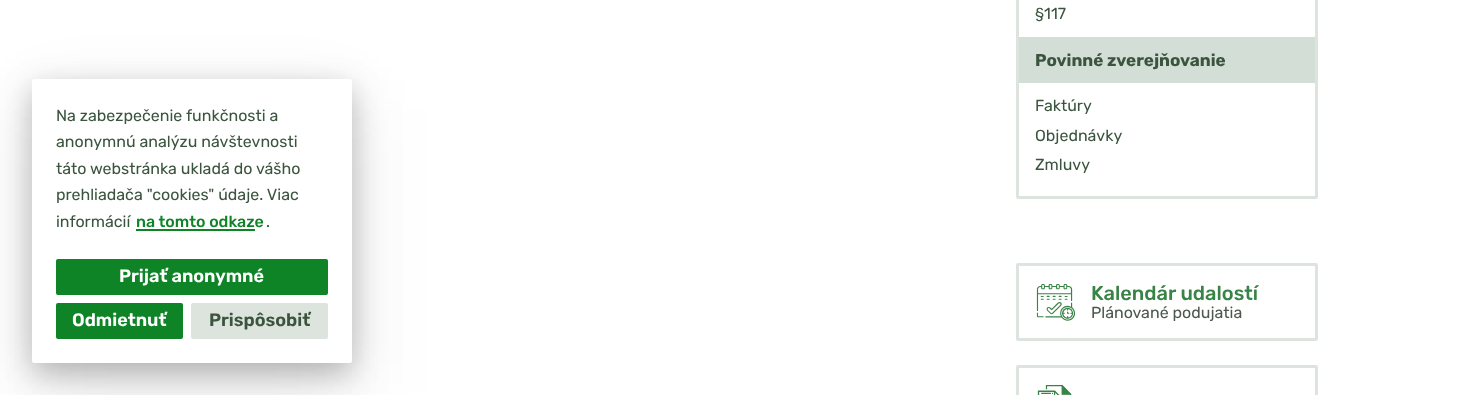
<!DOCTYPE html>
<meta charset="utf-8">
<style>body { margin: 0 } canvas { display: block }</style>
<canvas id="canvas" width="1463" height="395"></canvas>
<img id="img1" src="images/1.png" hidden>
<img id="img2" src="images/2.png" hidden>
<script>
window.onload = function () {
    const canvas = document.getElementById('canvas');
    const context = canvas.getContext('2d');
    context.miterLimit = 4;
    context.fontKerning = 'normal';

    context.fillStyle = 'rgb(255, 255, 255)';
    context.fillRect(0, 0, 1463, 395);
    context.fillStyle = 'rgba(0, 0, 0, 0.05)';
    context.filter = 'blur(45px)';
    context.beginPath();
    context.roundRect(32, 109, 320, 284, 2);
    context.fill();
    context.filter = 'none';
    context.filter = 'blur(30px)';
    context.beginPath();
    context.roundRect(32, 99, 320, 284, 2);
    context.fill();
    context.filter = 'none';
    context.fillStyle = 'rgba(0, 0, 0, 0.25)';
    context.filter = 'blur(15px)';
    context.beginPath();
    context.roundRect(32, 89, 320, 284, 2);
    context.fill();
    context.filter = 'none';
    context.fillStyle = 'rgb(255, 255, 255)';
    context.beginPath();
    context.roundRect(32, 79, 320, 284, 2);
    context.fill();
    context.fillStyle = 'rgb(14, 132, 39)';
    context.fillRect(136, 229, 119, 2);
    context.beginPath();
    context.roundRect(56, 259, 272, 36, 2);
    context.fill();
    context.beginPath();
    context.roundRect(56, 303, 127, 36, 2);
    context.fill();
    context.fillStyle = 'rgb(221, 228, 222)';
    context.beginPath();
    context.roundRect(191, 303, 137, 36, 2);
    context.fill();
    context.beginPath();
    context.roundRect(1017.5, -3.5, 299, 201, 0.5);
    context.strokeStyle = 'rgb(221, 228, 222)';
    context.lineWidth = 3;
    context.stroke();
    context.fillStyle = 'rgb(211, 222, 214)';
    context.fillRect(1019, 37, 296, 46);
    context.beginPath();
    context.roundRect(1017.5, 264.5, 299, 75, 0.5);
    context.stroke();
    context.drawImage(document.getElementById('img1'), 1036, 284, 39, 37);
    context.beginPath();
    context.roundRect(1017.5, 366.5, 299, 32, 0.5);
    context.stroke();
    context.drawImage(document.getElementById('img2'), 1037, 385, 35, 10);
    context.font = '16px Rubik';
    context.fillStyle = 'rgb(58, 84, 62)';
    context.fillText('Na zabezpečenie funkčnosti a', 56, 121);
    context.fillText('anonymnú analýzu návštevnosti', 56, 147);
    context.fillText('táto webstránka ukladá do vášho', 56, 174);
    context.fillText('prehliadača "cookies" údaje. Viac', 56, 200);
    context.fillText('informácií', 56, 227);
    context.font = '500 16px Rubik';
    context.fillStyle = 'rgb(14, 132, 39)';
    context.fillText('na tomto odkaze', 136, 227);
    context.font = '16px Rubik';
    context.fillStyle = 'rgb(58, 84, 62)';
    context.fillText('.', 266, 227);
    context.font = '600 18px Rubik';
    context.fillStyle = 'rgb(255, 255, 255)';
    context.fillText('Prijať anonymné', 119, 282);
    context.fillText('Odmietnuť', 72, 326);
    context.fillStyle = 'rgb(58, 84, 62)';
    context.fillText('Prispôsobiť', 209, 326);
    context.font = '16px Rubik';
    context.fillText('§117', 1035, 19);
    context.font = 'bold 17px Rubik';
    context.fillText('Povinné zverejňovanie', 1035, 66);
    context.font = '16px Rubik';
    context.fillText('Faktúry', 1035, 111);
    context.fillText('Objednávky', 1035, 141);
    context.fillText('Zmluvy', 1035, 170);
    context.font = '500 20px Rubik';
    context.fillStyle = 'rgb(56, 131, 70)';
    context.fillText('Kalendár udalostí', 1091, 300);
    context.font = '16px Rubik';
    context.fillStyle = 'rgb(76, 88, 78)';
    context.fillText('Plánované podujatia', 1091, 318);
};
</script>
